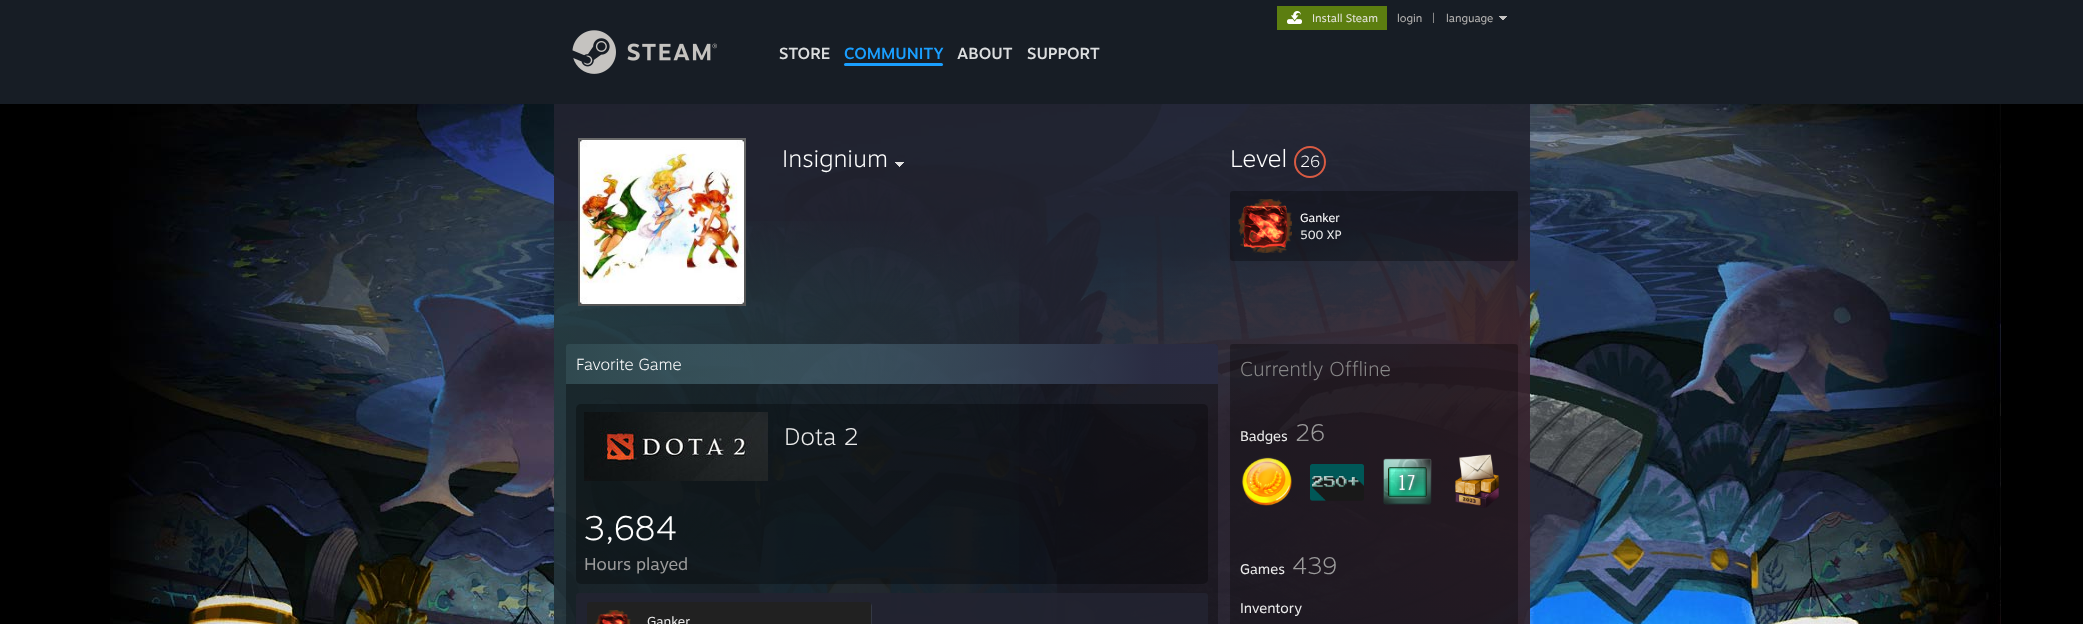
<!DOCTYPE html>
<meta charset="utf-8">
<style>body { margin: 0 } canvas { display: block }</style>
<canvas id="canvas" width="2083" height="624"></canvas>
<img id="img1" src="images/1.png" hidden>
<img id="img2" src="images/2.png" hidden>
<img id="img3" src="images/3.png" hidden>
<img id="img4" src="images/4.png" hidden>
<img id="img5" src="images/5.png" hidden>
<img id="img6" src="images/6.png" hidden>
<img id="img7" src="images/7.png" hidden>
<img id="img8" src="images/8.png" hidden>
<img id="img9" src="images/9.png" hidden>
<img id="img10" src="images/10.png" hidden>
<img id="img11" src="images/11.png" hidden>
<img id="img12" src="images/12.png" hidden>
<img id="img13" src="images/13.png" hidden>
<script>
window.onload = function () {
    const canvas = document.getElementById('canvas');
    const context = canvas.getContext('2d');
    context.miterLimit = 4;
    context.fontKerning = 'normal';
    let gradient;

    context.fillStyle = 'rgb(0, 0, 0)';
    context.fillRect(0, 0, 2083, 624);
    context.fillStyle = 'rgb(23, 29, 37)';
    context.fillRect(0, 0, 2083, 104);
    context.fillStyle = 'rgb(92, 126, 16)';
    context.fillRect(1277, 6, 110, 24);
    context.drawImage(document.getElementById('img1'), 1287, 11, 15, 13);
    context.drawImage(document.getElementById('img2'), 1499, 16, 8, 4);
    context.drawImage(document.getElementById('img3'), 572, 30, 145, 44);
    context.fillStyle = 'rgb(26, 159, 255)';
    context.beginPath();
    context.roundRect(844, 63, 99, 3, 1.5);
    context.fill();
    context.drawImage(document.getElementById('img4'), 110, 104, 1891, 520);
    context.fillStyle = 'rgba(34, 35, 48, 0.93)';
    context.fillRect(554, 104, 976, 224);
    gradient = context.createRadialGradient(554, 1427.89, 0, 554, 1427.89, 1380);
    gradient.addColorStop(0, 'rgba(50, 255, 193, 0.1)');
    gradient.addColorStop(0.43, 'rgba(50, 255, 193, 0)');
    context.fillStyle = gradient;
    context.beginPath();
    context.rect(554, 221, 465, 107);
    context.save();
    context.clip();
    context.scale(1, 317 / 1380);
    context.fillRect(0, 0, 2083, 2717);
    context.restore();
    gradient = context.createRadialGradient(1530, 1429.14, 0, 1530, 1429.14, 976);
    gradient.addColorStop(0, 'rgba(109, 38, 44, 0.3)');
    gradient.addColorStop(0.51, 'rgba(109, 38, 44, 0)');
    context.fillStyle = gradient;
    context.beginPath();
    context.rect(1085, 226, 445, 102);
    context.save();
    context.clip();
    context.scale(1, 224 / 976);
    context.fillRect(0, 0, 2083, 2719);
    context.restore();
    gradient = context.createLinearGradient(662, 138, 662, 306);
    gradient.addColorStop(0.05, 'rgb(106, 106, 106)');
    gradient.addColorStop(0.95, 'rgb(85, 85, 85)');
    context.fillStyle = gradient;
    context.fillRect(578, 138, 168, 168);
    context.drawImage(document.getElementById('img5'), 580, 140, 164, 164);
    context.drawImage(document.getElementById('img6'), 895, 162, 9, 5);
    context.beginPath();
    context.arc(1310, 162, 15, 0, 2 * Math.PI);
    context.strokeStyle = 'rgb(217, 91, 67)';
    context.lineWidth = 2;
    context.stroke();
    context.fillStyle = 'rgba(0, 0, 0, 0.3)';
    context.beginPath();
    context.roundRect(1230, 191, 288, 70, 3);
    context.fill();
    context.drawImage(document.getElementById('img7'), 1238, 199, 54, 54);
    context.fillStyle = 'rgba(34, 35, 48, 0.93)';
    context.fillRect(554, 328, 976, 296);
    gradient = context.createRadialGradient(554, 236.37, 0, 554, 236.37, 1380);
    gradient.addColorStop(0, 'rgba(50, 255, 193, 0.1)');
    gradient.addColorStop(0.43, 'rgba(50, 255, 193, 0)');
    context.fillStyle = gradient;
    context.beginPath();
    context.rect(554, 328, 465, 296);
    context.save();
    context.clip();
    context.scale(1, 1915 / 1380);
    context.fillRect(0, 0, 2083, 450);
    context.restore();
    gradient = context.createRadialGradient(1530, 236.43, 0, 1530, 236.43, 976);
    gradient.addColorStop(0, 'rgba(109, 38, 44, 0.3)');
    gradient.addColorStop(0.51, 'rgba(109, 38, 44, 0)');
    context.fillStyle = gradient;
    context.beginPath();
    context.rect(1085, 328, 445, 296);
    context.save();
    context.clip();
    context.scale(1, 1354 / 976);
    context.fillRect(0, 0, 2083, 450);
    context.restore();
    context.fillStyle = 'rgba(0, 0, 0, 0.3)';
    context.beginPath();
    context.roundRect(566, 344, 652, 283, 3);
    context.fill();
    gradient = context.createLinearGradient(566, 364, 1218, 364);
    gradient.addColorStop(0, 'rgba(115, 173, 184, 0.25)');
    gradient.addColorStop(0.9, 'rgba(43, 45, 68, 0.93)');
    context.fillStyle = gradient;
    context.beginPath();
    context.roundRect(566, 344, 652, 40, [3, 3, 0, 0]);
    context.fill();
    context.fillStyle = 'rgba(0, 0, 0, 0.3)';
    context.beginPath();
    context.roundRect(576, 404, 632, 180, 5);
    context.fill();
    context.drawImage(document.getElementById('img8'), 584, 412, 184, 69);
    context.fillStyle = 'rgba(34, 35, 48, 0.93)';
    context.beginPath();
    context.roundRect(576, 593, 632, 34, 3);
    context.fill();
    context.fillStyle = 'rgb(52, 57, 68)';
    context.beginPath();
    context.moveTo(588, 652);
    context.bezierCurveTo(589, 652, 590, 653, 591, 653);
    context.lineTo(869, 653);
    context.bezierCurveTo(871, 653, 872, 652, 872, 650);
    context.lineTo(872, 606);
    context.bezierCurveTo(872, 605, 871, 604, 871, 603);
    context.lineTo(871, 605);
    context.lineTo(871, 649);
    context.bezierCurveTo(871, 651, 870, 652, 868, 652);
    context.lineTo(590, 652);
    context.closePath();
    context.fill();
    context.fillStyle = 'rgb(33, 33, 33)';
    context.beginPath();
    context.moveTo(590, 602);
    context.lineTo(868, 602);
    context.bezierCurveTo(870, 602, 871, 603, 871, 605);
    context.lineTo(871, 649);
    context.bezierCurveTo(871, 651, 870, 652, 868, 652);
    context.lineTo(590, 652);
    context.bezierCurveTo(588, 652, 587, 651, 587, 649);
    context.lineTo(587, 605);
    context.bezierCurveTo(587, 603, 588, 602, 590, 602);
    context.closePath();
    context.fill();
    context.drawImage(document.getElementById('img9'), 595, 610, 36, 14);
    context.fillStyle = 'rgba(0, 0, 0, 0.3)';
    context.beginPath();
    context.roundRect(1230, 344, 288, 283, 3);
    context.fill();
    context.drawImage(document.getElementById('img10'), 1241, 457, 51, 49);
    context.drawImage(document.getElementById('img11'), 1310, 464, 54, 37);
    context.drawImage(document.getElementById('img12'), 1383, 458, 49, 47);
    context.drawImage(document.getElementById('img13'), 1455, 454, 44, 54);
    context.font = '11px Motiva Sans';
    context.fillStyle = 'rgb(229, 228, 220)';
    context.fillText('Install Steam', 1312, 22);
    context.fillStyle = 'rgb(184, 182, 180)';
    context.fillText('login', 1397, 22);
    context.fillText('|', 1432, 22);
    context.fillText('language', 1446, 22);
    context.font = '500 16px Motiva Sans';
    context.fillStyle = 'rgb(220, 222, 223)';
    context.fillText('STORE', 779, 59);
    context.fillStyle = 'rgb(26, 159, 255)';
    context.fillText('COMMUNITY', 844, 59);
    context.fillStyle = 'rgb(220, 222, 223)';
    context.fillText('ABOUT', 957, 59);
    context.fillText('SUPPORT', 1027, 59);
    context.font = '100 24px Motiva Sans';
    context.fillStyle = 'rgb(255, 255, 255)';
    context.fillText('Insignium', 782, 167);
    context.fillText('Level', 1230, 167);
    context.font = '100 16px Motiva Sans';
    context.fillText('26', 1300, 167);
    context.font = '12px Motiva Sans';
    context.fillText('Ganker', 1300, 222);
    context.fillStyle = 'rgb(235, 235, 235)';
    context.fillText('500 XP', 1300, 239);
    context.font = '100 16px Motiva Sans';
    context.fillStyle = 'rgb(255, 255, 255)';
    context.fillText('Favorite Game', 576, 370);
    context.font = '100 24px Motiva Sans';
    context.fillStyle = 'rgb(235, 235, 235)';
    context.fillText('Dota 2', 784, 445);
    context.font = '100 34px Motiva Sans';
    context.fillStyle = 'rgb(255, 255, 255)';
    context.fillText('3,684', 584, 540);
    context.font = '17px Motiva Sans';
    context.fillStyle = 'rgb(155, 155, 155)';
    context.fillText('Hours played', 584, 570);
    context.font = '13px Motiva Sans';
    context.fillStyle = 'rgb(235, 235, 235)';
    context.fillText('Ganker', 647, 626);
    context.font = '100 20px Motiva Sans';
    context.fillStyle = 'rgb(137, 137, 137)';
    context.fillText('Currently Offline', 1240, 376);
    context.font = '14px Motiva Sans';
    context.fillStyle = 'rgb(235, 235, 235)';
    context.fillText('Badges', 1240, 441);
    context.font = '100 24px Motiva Sans';
    context.fillStyle = 'rgb(155, 155, 155)';
    context.fillText('26', 1295, 441);
    context.font = '14px Motiva Sans';
    context.fillStyle = 'rgb(235, 235, 235)';
    context.fillText('Games', 1240, 574);
    context.font = '100 24px Motiva Sans';
    context.fillStyle = 'rgb(155, 155, 155)';
    context.fillText('439', 1292, 574);
    context.font = '14px Motiva Sans';
    context.fillStyle = 'rgb(235, 235, 235)';
    context.fillText('Inventory', 1240, 613);
};
</script>
